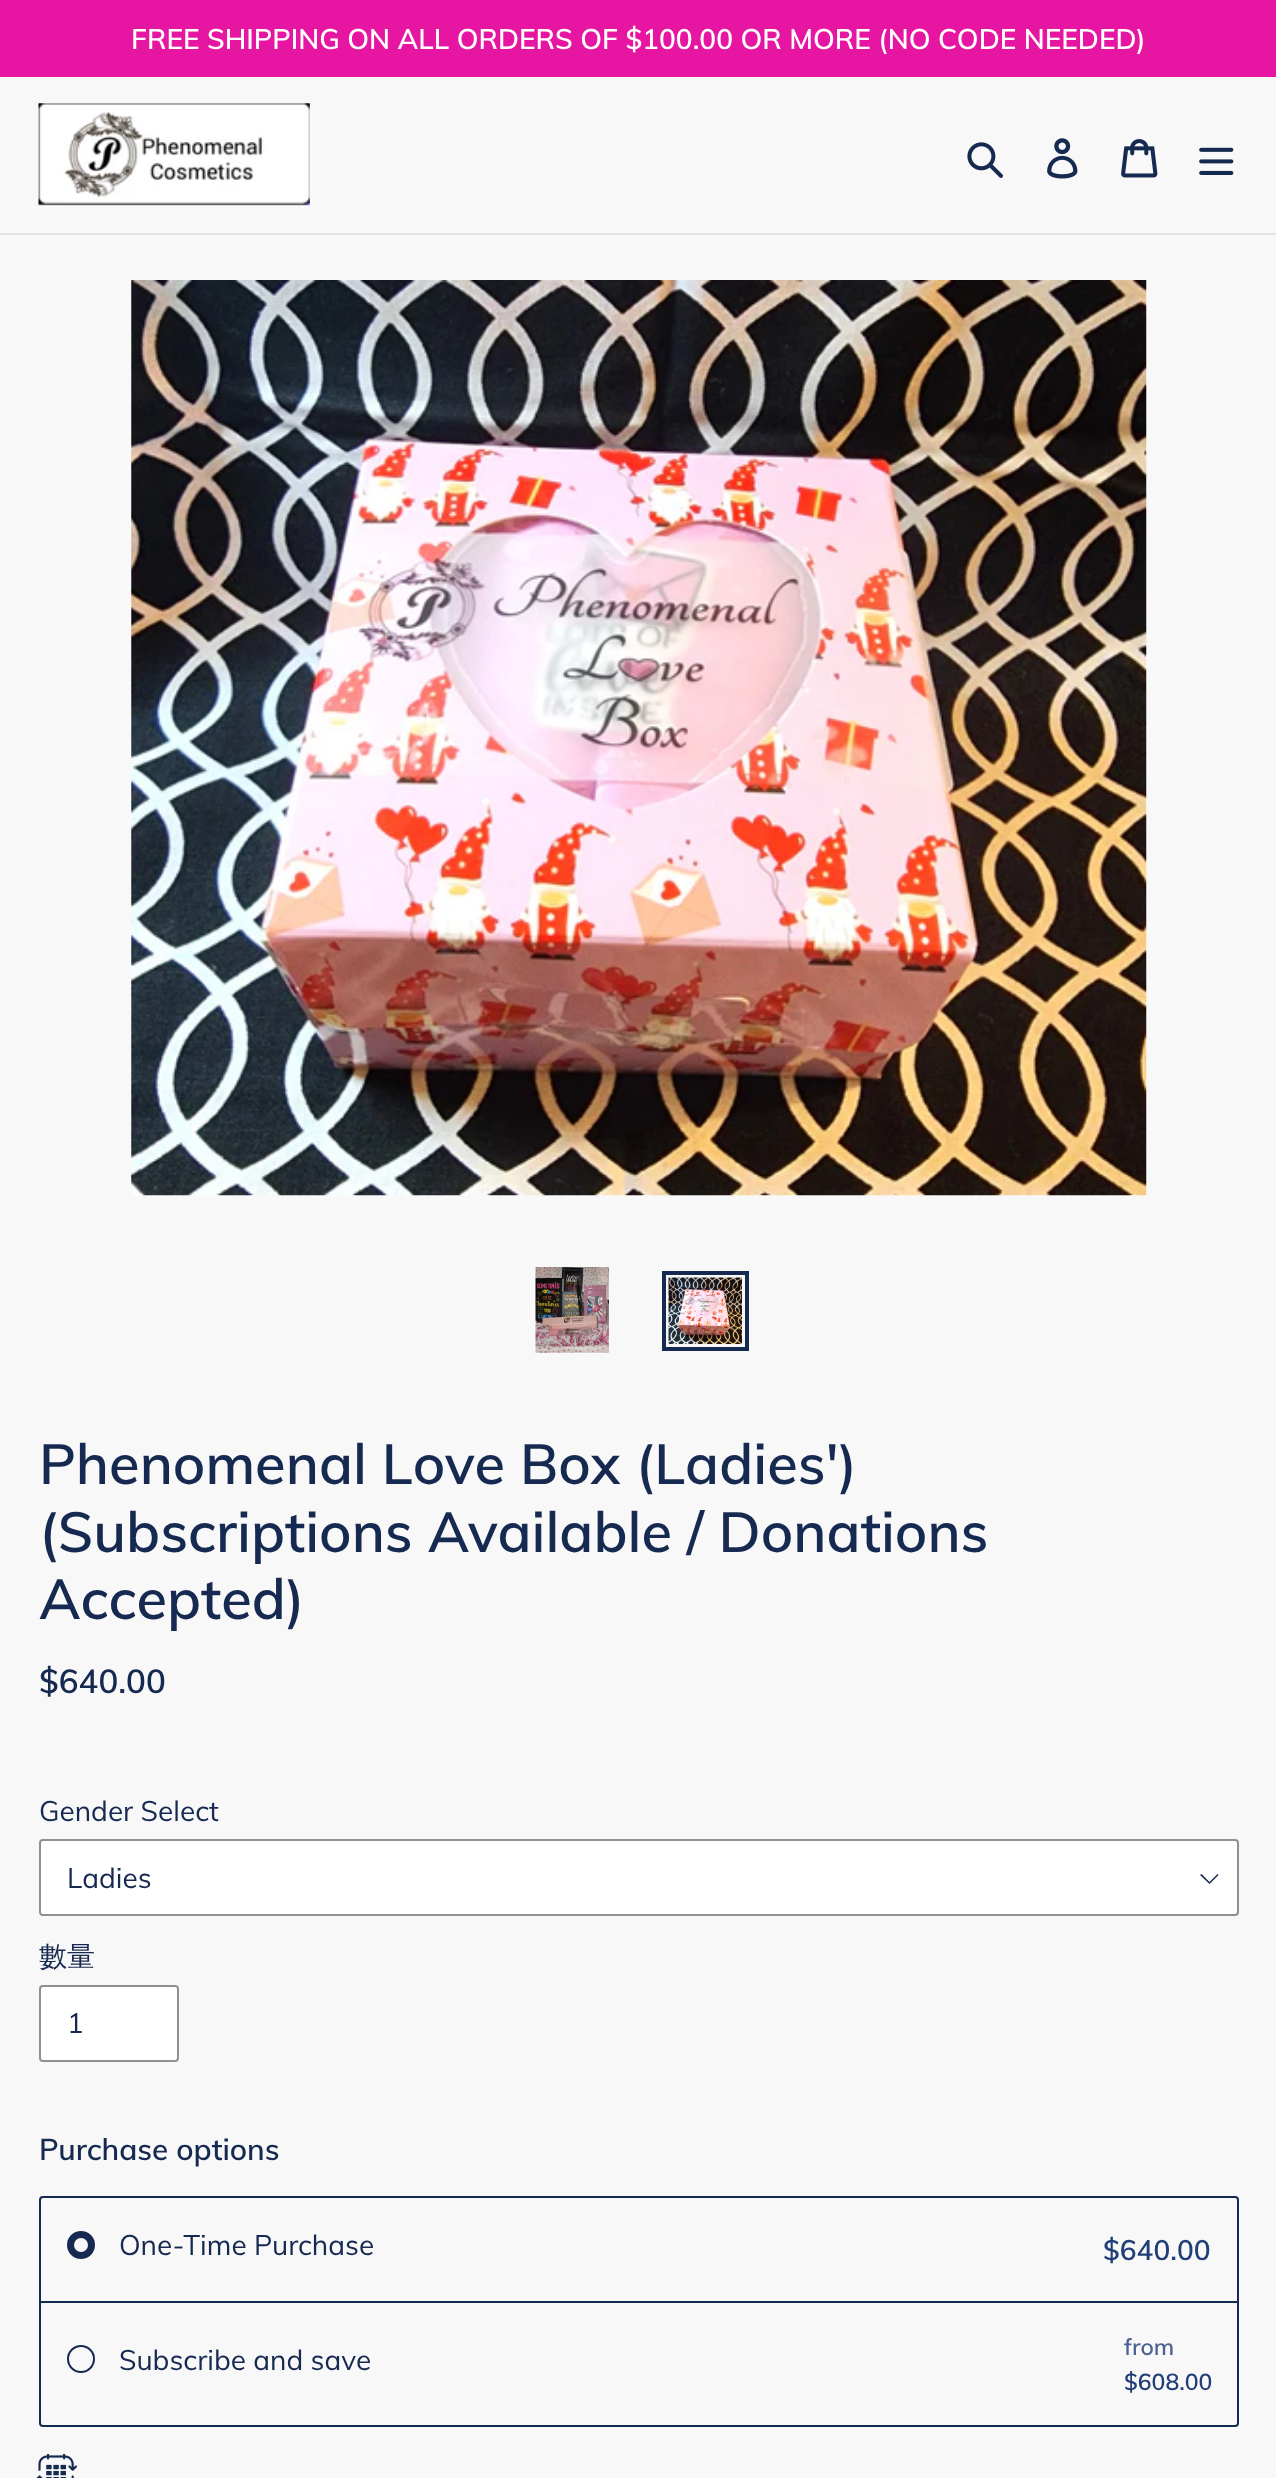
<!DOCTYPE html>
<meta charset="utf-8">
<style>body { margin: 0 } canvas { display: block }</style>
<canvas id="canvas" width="1276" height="2478"></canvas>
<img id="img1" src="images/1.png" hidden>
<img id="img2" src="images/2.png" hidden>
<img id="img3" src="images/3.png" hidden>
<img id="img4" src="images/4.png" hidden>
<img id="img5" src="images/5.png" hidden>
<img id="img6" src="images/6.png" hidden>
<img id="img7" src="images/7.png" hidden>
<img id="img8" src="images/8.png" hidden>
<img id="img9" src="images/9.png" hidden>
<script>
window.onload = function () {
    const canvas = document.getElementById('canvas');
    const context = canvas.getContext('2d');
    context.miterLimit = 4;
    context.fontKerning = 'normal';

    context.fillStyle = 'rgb(248, 248, 248)';
    context.fillRect(0, 0, 1276, 2478);
    context.fillStyle = 'rgb(231, 22, 162)';
    context.fillRect(0, 0, 1276, 77);
    context.fillStyle = 'rgb(228, 228, 228)';
    context.fillRect(0, 233, 1276, 2);
    context.drawImage(document.getElementById('img1'), 38, 103, 272, 104);
    context.drawImage(document.getElementById('img2'), 967, 142, 36, 36);
    context.drawImage(document.getElementById('img3'), 1047, 138, 31, 41);
    context.drawImage(document.getElementById('img4'), 1121, 139, 37, 39);
    context.drawImage(document.getElementById('img5'), 1199, 147, 35, 28);
    context.drawImage(document.getElementById('img6'), 131, 280, 1016, 916);
    context.drawImage(document.getElementById('img7'), 535, 1267, 74, 86);
    context.strokeStyle = 'rgb(22, 41, 80)';
    context.lineWidth = 4;
    context.strokeRect(664, 1273, 83, 76);
    context.drawImage(document.getElementById('img8'), 668, 1277, 74, 67);
    context.fillStyle = 'rgb(255, 255, 255)';
    context.beginPath();
    context.roundRect(39, 1839, 1200, 77, 4);
    context.fill();
    context.fillStyle = 'rgb(22, 41, 80)';
    context.beginPath();
    context.moveTo(1209.5, 1884);
    context.lineTo(1200, 1875);
    context.lineTo(1201.5, 1874);
    context.lineTo(1209.5, 1882);
    context.lineTo(1217.5, 1874);
    context.lineTo(1218.5, 1875);
    context.closePath();
    context.fill();
    context.beginPath();
    context.roundRect(40, 1840, 1198, 75, 3);
    context.strokeStyle = 'rgb(144, 144, 144)';
    context.lineWidth = 2;
    context.stroke();
    context.fillStyle = 'rgb(255, 255, 255)';
    context.beginPath();
    context.roundRect(40, 1986, 138, 75, 3);
    context.fill();
    context.stroke();
    context.beginPath();
    context.roundRect(40, 2197, 1198, 229, 3);
    context.strokeStyle = 'rgb(22, 41, 80)';
    context.stroke();
    context.fillStyle = 'rgb(22, 41, 80)';
    context.fillRect(40, 2301, 1197, 2);
    context.beginPath();
    context.arc(81, 2245, 10.5, 0, 2 * Math.PI);
    context.lineWidth = 7;
    context.stroke();
    context.beginPath();
    context.arc(81, 2359, 13, 0, 2 * Math.PI);
    context.lineWidth = 2;
    context.stroke();
    context.drawImage(document.getElementById('img9'), 36, 2454, 41, 24);
    context.font = '600 28px Muli';
    context.fillStyle = 'rgb(255, 255, 255)';
    context.fillText('FREE SHIPPING ON ALL ORDERS OF $100.00 OR MORE (NO CODE NEEDED)', 131, 49);
    context.font = '600 56px Muli';
    context.fillStyle = 'rgb(22, 41, 80)';
    context.fillText('Phenomenal Love Box (Ladies\')', 39, 1484);
    context.fillText('(Subscriptions Available / Donations', 39, 1552);
    context.fillText('Accepted)', 39, 1619);
    context.font = '600 33px Muli';
    context.fillText('$640.00', 39, 1693);
    context.font = '28px Muli';
    context.fillText('Gender Select', 39, 1821);
    context.fillText('Ladies', 67, 1888);
    context.font = '500 28px WenQuanYi Zen Hei';
    context.fillText('數量', 39, 1966);
    context.font = '28px Muli';
    context.fillText('1', 67, 2033);
    context.font = '600 29.75px Muli';
    context.fillText('Purchase options', 39, 2160);
    context.font = '28px Muli';
    context.fillText('One-Time Purchase', 119, 2255);
    context.font = '600 28px Muli';
    context.fillStyle = 'rgb(33, 62, 120)';
    context.fillText('$640.00', 1103, 2260);
    context.font = '28px Muli';
    context.fillStyle = 'rgb(22, 41, 80)';
    context.fillText('Subscribe and save', 119, 2370);
    context.font = '600 23px Muli';
    context.fillStyle = 'rgb(76, 99, 146)';
    context.fillText('from', 1124, 2355);
    context.fillStyle = 'rgb(33, 62, 120)';
    context.fillText('$608.00', 1124, 2390);
};
</script>
